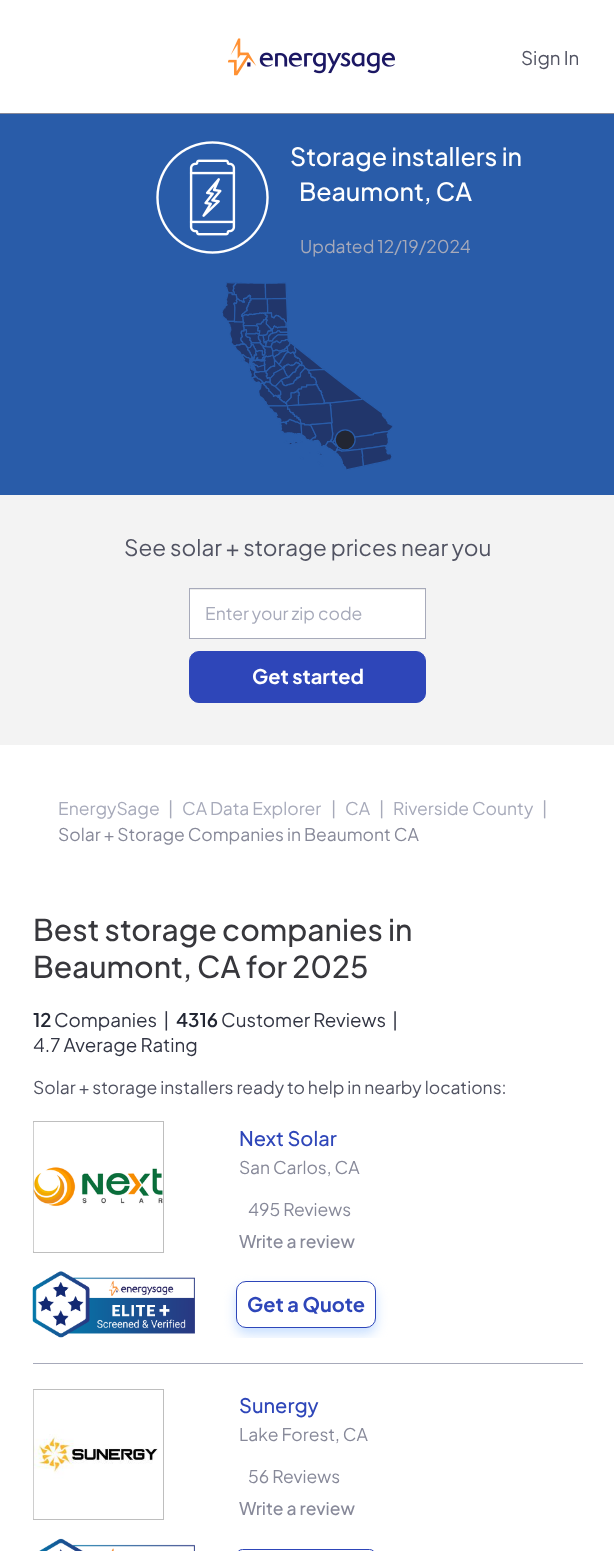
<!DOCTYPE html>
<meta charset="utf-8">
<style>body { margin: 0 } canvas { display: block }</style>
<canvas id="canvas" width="614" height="1551"></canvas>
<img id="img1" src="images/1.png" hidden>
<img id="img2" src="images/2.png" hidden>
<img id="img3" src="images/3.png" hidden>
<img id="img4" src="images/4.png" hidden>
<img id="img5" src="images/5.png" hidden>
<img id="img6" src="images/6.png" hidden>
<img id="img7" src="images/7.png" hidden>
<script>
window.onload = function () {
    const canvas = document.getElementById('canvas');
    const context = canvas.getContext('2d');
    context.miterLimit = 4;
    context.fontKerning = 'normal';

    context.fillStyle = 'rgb(255, 255, 255)';
    context.fillRect(0, 0, 614, 1551);
    context.fillStyle = 'rgb(135, 137, 153)';
    context.fillRect(0, 113, 614, 1);
    context.drawImage(document.getElementById('img1'), 228, 38, 167, 38);
    context.fillStyle = 'rgb(41, 92, 169)';
    context.fillRect(0, 114, 614, 381);
    context.drawImage(document.getElementById('img2'), 156, 141, 113, 113);
    context.drawImage(document.getElementById('img3'), 222, 282, 171, 188);
    context.fillStyle = 'rgb(243, 243, 243)';
    context.fillRect(0, 495, 614, 250);
    context.fillStyle = 'rgb(255, 255, 255)';
    context.fillRect(190, 590, 235, 48);
    context.fillStyle = 'rgb(236, 236, 236)';
    context.fillRect(190, 589, 235, 1);
    context.strokeStyle = 'rgb(167, 170, 186)';
    context.strokeRect(189.5, 588.5, 236, 50);
    context.fillStyle = 'rgb(46, 70, 185)';
    context.beginPath();
    context.roundRect(189.5, 651.5, 236, 51, 9.5);
    context.fill();
    context.strokeStyle = 'rgb(46, 70, 185)';
    context.stroke();
    context.fillStyle = 'rgb(167, 170, 186)';
    context.fillRect(33, 1363, 550, 1);
    context.strokeStyle = 'rgb(190, 190, 190)';
    context.strokeRect(33.5, 1121.5, 130, 131);
    context.drawImage(document.getElementById('img4'), 33, 1122, 130, 130);
    context.drawImage(document.getElementById('img5'), 32, 1271, 163, 67);
    context.save();
    context.beginPath();
    context.rect(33, 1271, 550, 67);
    context.clip();
    context.fillStyle = 'rgb(200, 223, 255)';
    context.filter = 'blur(6px)';
    context.beginPath();
    context.roundRect(236, 1288, 140, 46, 10);
    context.fill();
    context.filter = 'none';
    context.restore();
    context.fillStyle = 'rgb(255, 255, 255)';
    context.beginPath();
    context.roundRect(236.5, 1281.5, 139, 46, 9.5);
    context.fill();
    context.strokeStyle = 'rgb(46, 70, 185)';
    context.stroke();
    context.strokeStyle = 'rgb(190, 190, 190)';
    context.strokeRect(33.5, 1389.5, 130, 130);
    context.drawImage(document.getElementById('img6'), 33, 1390, 125, 129);
    context.drawImage(document.getElementById('img7'), 39, 1538, 156, 13);
    context.beginPath();
    context.roundRect(236.5, 1549.5, 139, 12, 9.5);
    context.strokeStyle = 'rgb(46, 70, 185)';
    context.stroke();
    context.font = '18.75px Plus Jakarta Sans';
    context.fillStyle = 'rgb(81, 83, 98)';
    context.fillText('Sign In', 521, 65);
    context.font = '500 25px Plus Jakarta Sans';
    context.fillStyle = 'rgb(255, 255, 255)';
    context.fillText('Storage installers in', 290, 166);
    context.fillText('Beaumont, CA', 299, 201);
    context.font = '17.5px Plus Jakarta Sans';
    context.fillStyle = 'rgb(167, 170, 186)';
    context.fillText('Updated 12/19/2024', 300, 253);
    context.font = '22.5px Plus Jakarta Sans';
    context.fillStyle = 'rgb(81, 83, 98)';
    context.fillText('See solar + storage prices near you', 124, 556);
    context.font = '17.5px Plus Jakarta Sans';
    context.fillStyle = 'rgb(167, 170, 186)';
    context.fillText('Enter your zip code', 205, 620);
    context.font = 'bold 20px Plus Jakarta Sans';
    context.fillStyle = 'rgb(255, 255, 255)';
    context.fillText('Get started', 252, 684);
    context.font = '17.5px Plus Jakarta Sans';
    context.fillStyle = 'rgb(167, 170, 186)';
    context.fillText('EnergySage', 58, 815);
    context.fillText('|', 168, 815);
    context.fillText('CA Data Explorer', 182, 815);
    context.fillText('|', 331, 815);
    context.fillText('CA', 345, 815);
    context.fillText('|', 379, 815);
    context.fillText('Riverside County', 393, 815);
    context.fillText('|', 542, 815);
    context.fillStyle = 'rgb(135, 137, 153)';
    context.fillText('Solar + Storage Companies in Beaumont CA', 58, 841);
    context.font = '500 30px Plus Jakarta Sans';
    context.fillStyle = 'rgb(55, 55, 60)';
    context.fillText('Best storage companies in', 33, 941);
    context.fillText('Beaumont, CA for 2025', 33, 978);
    context.font = '600 18.75px Plus Jakarta Sans';
    context.fillStyle = 'rgb(34, 38, 51)';
    context.fillText('12', 33, 1027);
    context.font = '18.75px Plus Jakarta Sans';
    context.fillStyle = 'rgb(50, 53, 67)';
    context.fillText('Companies  |', 54, 1027);
    context.font = '600 18.75px Plus Jakarta Sans';
    context.fillStyle = 'rgb(34, 38, 51)';
    context.fillText('4316', 176, 1027);
    context.font = '18.75px Plus Jakarta Sans';
    context.fillStyle = 'rgb(50, 53, 67)';
    context.fillText('Customer Reviews  |', 221, 1027);
    context.fillText('4.7 Average Rating', 33, 1052);
    context.font = '17.5px Plus Jakarta Sans';
    context.fillStyle = 'rgb(81, 83, 98)';
    context.fillText('Solar + storage installers ready to help in nearby locations:', 33, 1094);
    context.font = '500 20px Plus Jakarta Sans';
    context.fillStyle = 'rgb(46, 70, 185)';
    context.fillText('Next Solar', 239, 1146);
    context.font = '17.5px Plus Jakarta Sans';
    context.fillStyle = 'rgb(135, 137, 153)';
    context.fillText('San Carlos, CA', 239, 1174);
    context.fillText('495 Reviews', 248, 1216);
    context.font = '500 17.5px Plus Jakarta Sans';
    context.fillText('Write a review', 239, 1248);
    context.font = 'bold 20px Plus Jakarta Sans';
    context.fillStyle = 'rgb(46, 70, 185)';
    context.fillText('Get a Quote', 247, 1312);
    context.font = '500 20px Plus Jakarta Sans';
    context.fillText('Sunergy', 239, 1413);
    context.font = '17.5px Plus Jakarta Sans';
    context.fillStyle = 'rgb(135, 137, 153)';
    context.fillText('Lake Forest, CA', 239, 1441);
    context.fillText('56 Reviews', 248, 1483);
    context.font = '500 17.5px Plus Jakarta Sans';
    context.fillText('Write a review', 239, 1515);
};
</script>
